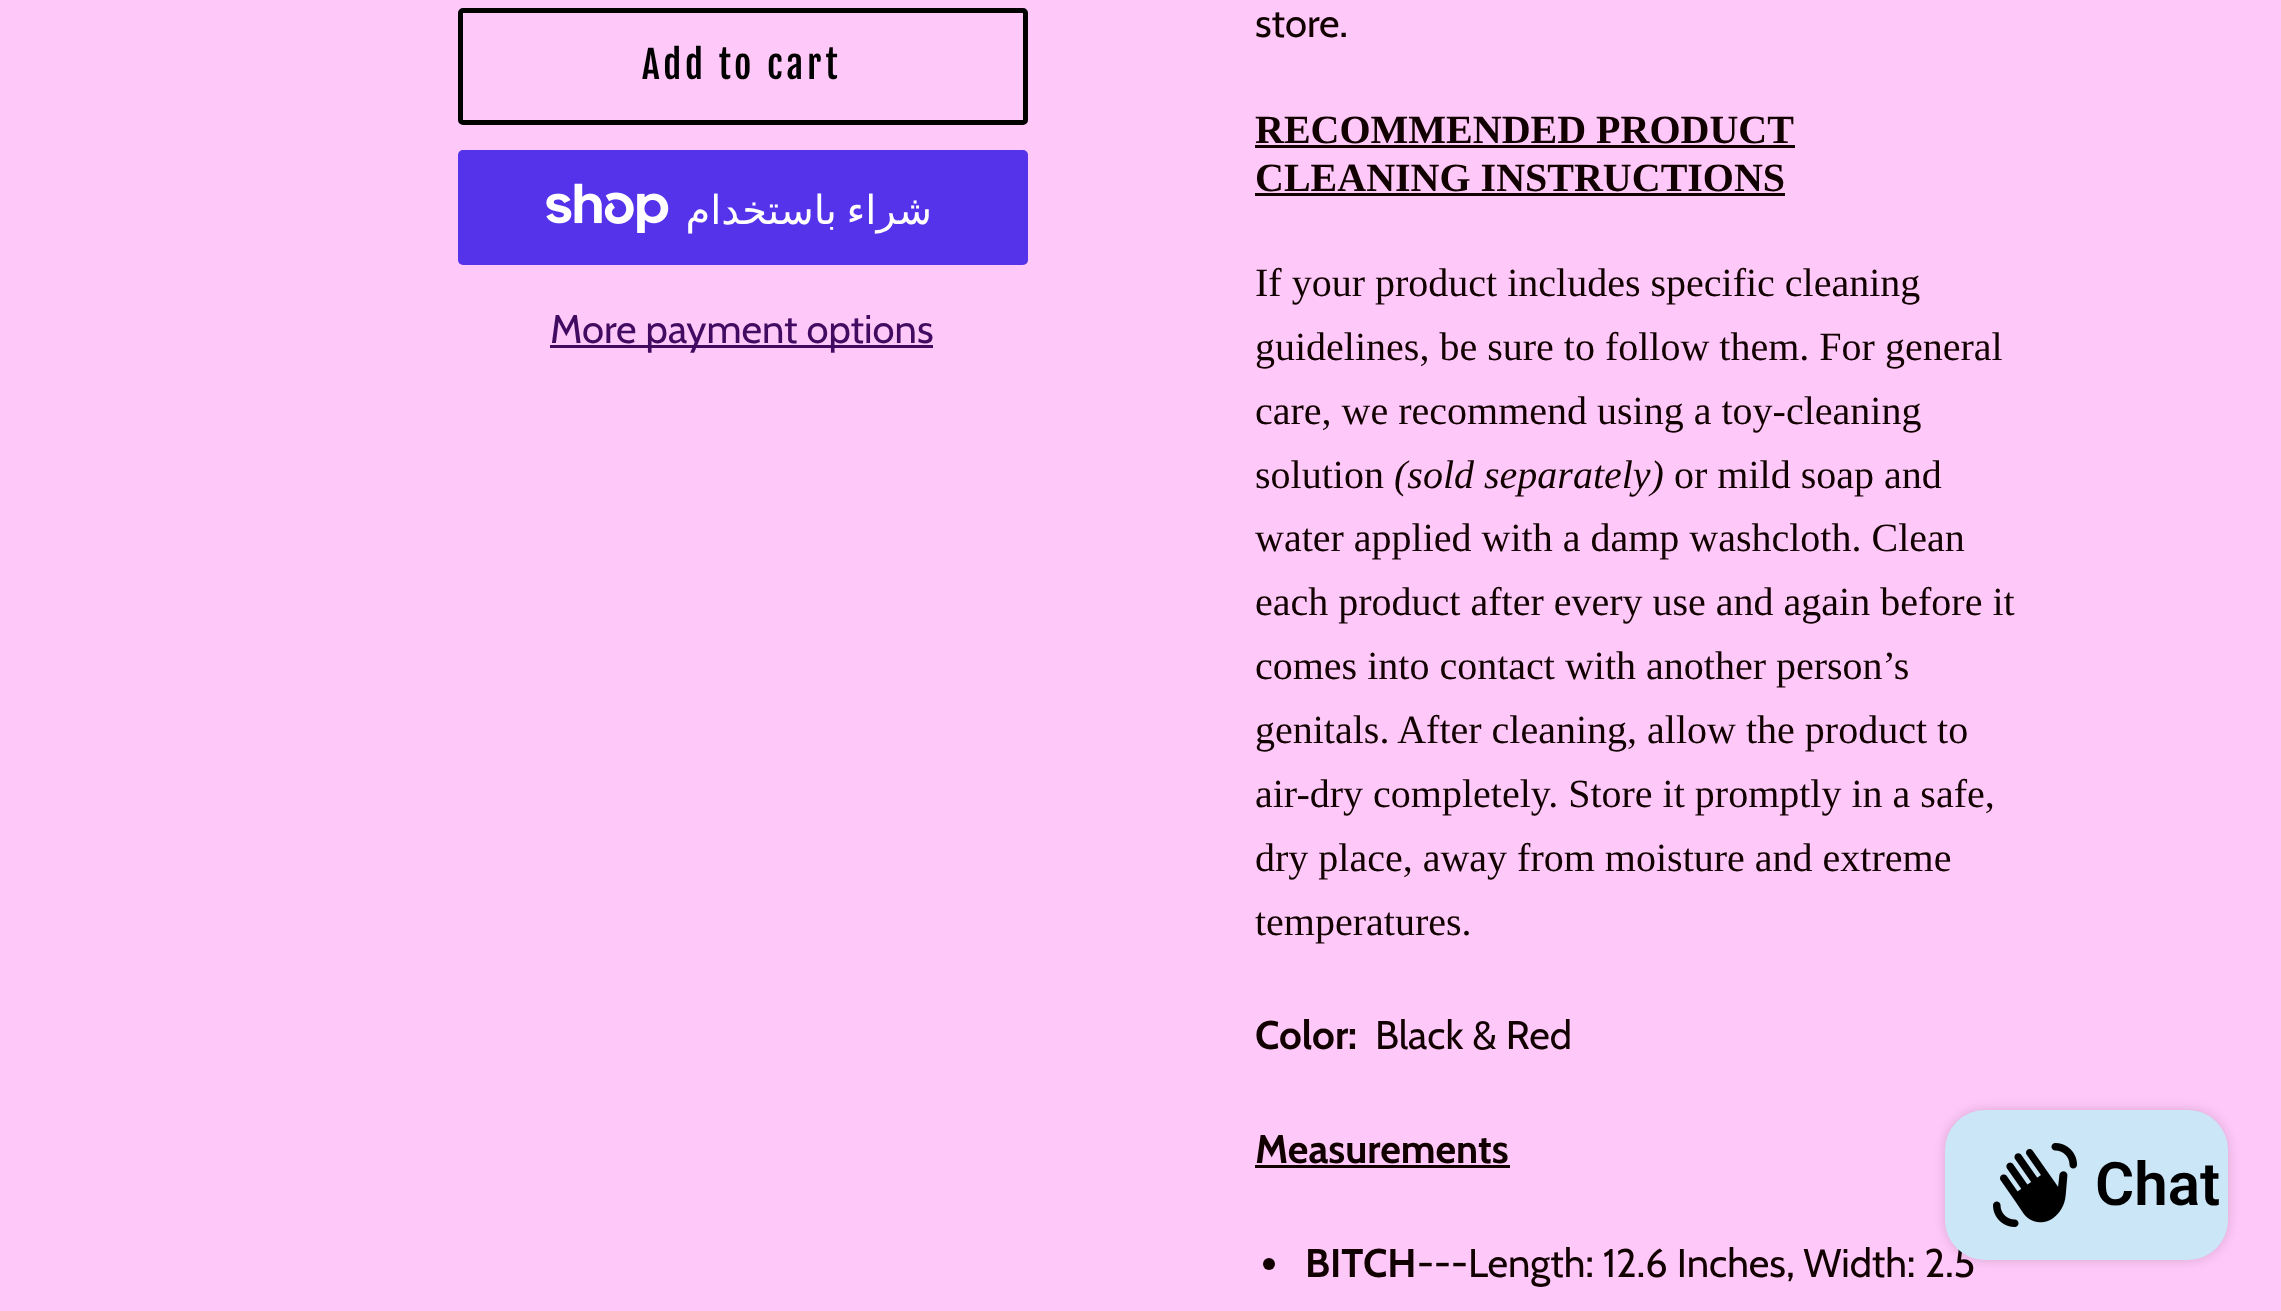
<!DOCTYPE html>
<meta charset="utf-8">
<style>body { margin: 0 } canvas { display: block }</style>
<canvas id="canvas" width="2281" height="1311"></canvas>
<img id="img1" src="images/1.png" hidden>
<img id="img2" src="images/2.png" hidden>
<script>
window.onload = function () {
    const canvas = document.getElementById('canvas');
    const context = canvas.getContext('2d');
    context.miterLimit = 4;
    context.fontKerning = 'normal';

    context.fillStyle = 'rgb(254, 200, 248)';
    context.fillRect(0, 0, 2281, 1311);
    context.beginPath();
    context.roundRect(460.5, 10.5, 565, 112, 2.5);
    context.strokeStyle = 'rgb(0, 0, 0)';
    context.lineWidth = 5;
    context.stroke();
    context.fillStyle = 'rgb(84, 51, 235)';
    context.beginPath();
    context.roundRect(458, 150, 570, 115, 5);
    context.fill();
    context.drawImage(document.getElementById('img1'), 546, 183, 123, 50);
    context.fillStyle = 'rgb(64, 11, 97)';
    context.fillRect(550, 345, 383, 3);
    context.fillStyle = 'rgb(17, 1, 1)';
    context.fillRect(1255, 145, 540, 3);
    context.fillRect(1255, 193, 530, 3);
    context.fillRect(1255, 1165, 255, 3);
    context.beginPath();
    context.arc(1269, 1264, 6, 0, 2 * Math.PI);
    context.fill();
    context.fillStyle = 'rgba(0, 0, 0, 0.15)';
    context.filter = 'blur(6px)';
    context.beginPath();
    context.roundRect(1945, 1110, 283, 150, 40);
    context.fill();
    context.filter = 'none';
    context.letterSpacing = '3.75px';
    context.font = '37.5px Fjalla One';
    context.fillStyle = 'rgb(0, 0, 0)';
    context.fillText('Add to cart', 642, 79);
    context.letterSpacing = '0px';
    context.direction = 'rtl';
    context.font = '40px DejaVu Sans';
    context.fillStyle = 'rgb(255, 255, 255)';
    context.fillText('باستخدام', 837, 224);
    context.fillText('شراء', 932, 224);
    context.direction = 'ltr';
    context.font = '40px Cabin';
    context.fillStyle = 'rgb(64, 11, 97)';
    context.fillText('More payment options', 550, 343);
    context.fillStyle = 'rgb(17, 1, 1)';
    context.fillText('store.', 1255, 37);
    context.font = 'bold 40px Liberation Serif';
    context.fillText('RECOMMENDED PRODUCT', 1255, 143);
    context.fillText('CLEANING INSTRUCTIONS', 1255, 191);
    context.font = '40px Liberation Serif';
    context.fillText('If your product includes specific cleaning', 1255, 296);
    context.fillText('guidelines, be sure to follow them. For general', 1255, 360);
    context.fillText('care, we recommend using a toy-cleaning', 1255, 424);
    context.fillText('solution', 1255, 488);
    context.font = 'italic 40px Liberation Serif';
    context.fillText('(sold separately)', 1394, 488);
    context.font = '40px Liberation Serif';
    context.fillText('or mild soap and', 1674, 488);
    context.fillText('water applied with a damp washcloth. Clean', 1255, 551);
    context.fillText('each product after every use and again before it', 1255, 615);
    context.fillText('comes into contact with another person’s', 1255, 679);
    context.fillText('genitals. After cleaning, allow the product to', 1255, 743);
    context.fillText('air-dry completely. Store it promptly in a safe,', 1255, 807);
    context.fillText('dry place, away from moisture and extreme', 1255, 871);
    context.fillText('temperatures.', 1255, 935);
    context.font = 'bold 40px Cabin';
    context.fillText('Color:', 1255, 1049);
    context.font = '40px Cabin';
    context.fillText('Black & Red', 1375, 1049);
    context.font = 'bold 40px Cabin';
    context.fillText('Measurements', 1255, 1163);
    context.fillText('BITCH', 1305, 1277);
    context.font = '40px Cabin';
    context.fillText('---Length: 12.6 Inches, Width: 2.5', 1417, 1277);
    context.fillStyle = 'rgb(203, 231, 247)';
    context.beginPath();
    context.roundRect(1945, 1110, 283, 150, 40);
    context.fill();
    context.drawImage(document.getElementById('img2'), 1993, 1143, 84, 84);
    context.font = '600 60px Roboto';
    context.fillStyle = 'rgb(0, 0, 0)';
    context.fillText('Chat', 2095, 1205);
};
</script>
